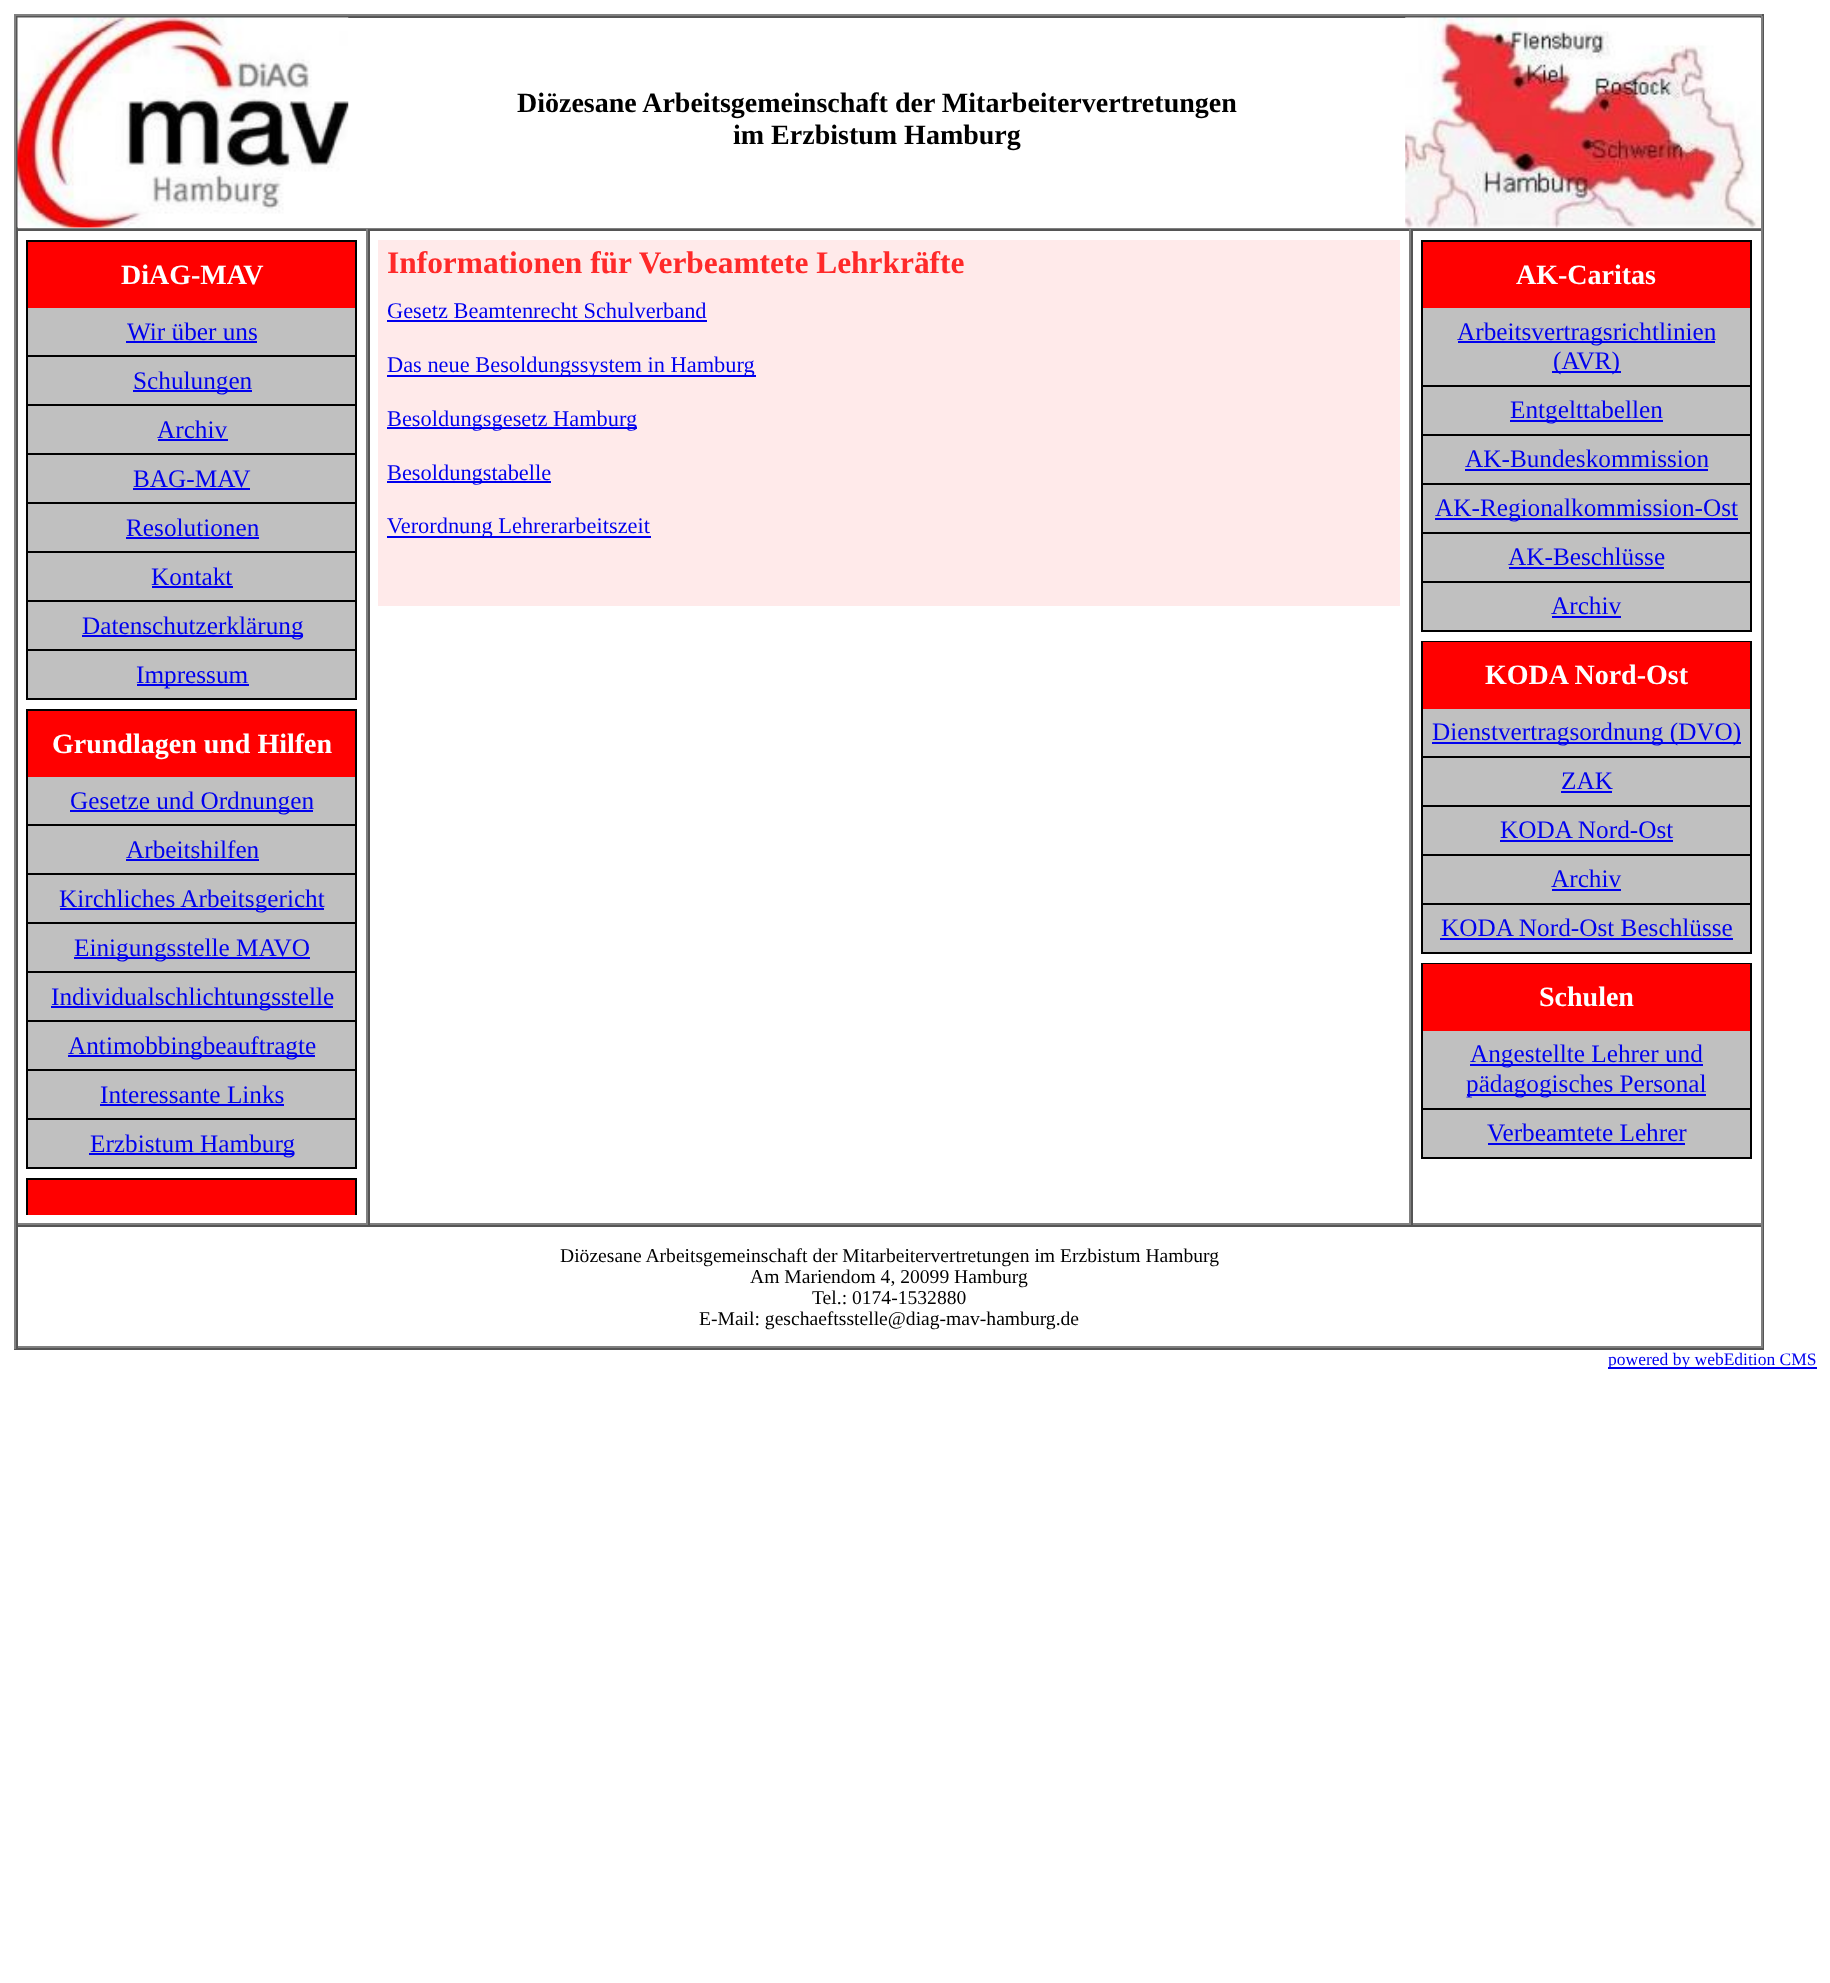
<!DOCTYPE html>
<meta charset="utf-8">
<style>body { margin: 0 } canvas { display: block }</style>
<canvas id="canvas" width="1830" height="1983"></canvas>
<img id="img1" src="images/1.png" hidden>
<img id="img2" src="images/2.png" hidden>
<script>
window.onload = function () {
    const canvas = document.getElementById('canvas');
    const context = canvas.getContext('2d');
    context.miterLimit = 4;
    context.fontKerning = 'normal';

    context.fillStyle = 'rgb(255, 255, 255)';
    context.fillRect(0, 0, 1830, 1983);
    context.fillStyle = 'rgb(128, 128, 128)';
    context.fillRect(14, 14, 1750, 2);
    context.fillStyle = 'rgb(85, 85, 85)';
    context.fillRect(1762, 14, 2, 1335);
    context.fillRect(14, 1348, 1750, 2);
    context.fillStyle = 'rgb(128, 128, 128)';
    context.fillRect(14, 14, 2, 1335);
    context.fillStyle = 'rgb(85, 85, 85)';
    context.fillRect(16, 16, 1746, 2);
    context.fillStyle = 'rgb(128, 128, 128)';
    context.fillRect(1761, 16, 2, 213);
    context.fillRect(16, 228, 1746, 1);
    context.fillStyle = 'rgb(85, 85, 85)';
    context.fillRect(16, 16, 2, 213);
    context.drawImage(document.getElementById('img1'), 17, 17, 332, 211);
    context.drawImage(document.getElementById('img2'), 1405, 17, 356, 211);
    context.fillRect(16, 229, 1746, 2);
    context.fillStyle = 'rgb(128, 128, 128)';
    context.fillRect(366, 229, 2, 996);
    context.fillRect(16, 1223, 352, 2);
    context.fillStyle = 'rgb(85, 85, 85)';
    context.fillRect(16, 229, 2, 996);
    context.fillStyle = 'rgb(192, 192, 192)';
    context.fillRect(28, 308, 327, 390);
    context.fillStyle = 'rgb(0, 0, 0)';
    context.fillRect(26, 240, 331, 2);
    context.fillRect(355, 240, 2, 460);
    context.fillRect(26, 240, 2, 460);
    context.fillStyle = 'rgb(255, 0, 0)';
    context.fillRect(28, 242, 327, 66);
    context.fillStyle = 'rgb(0, 0, 0)';
    context.fillRect(28, 355, 327, 2);
    context.fillStyle = 'rgb(0, 0, 238)';
    context.fillRect(126, 341, 131, 2);
    context.fillStyle = 'rgb(0, 0, 0)';
    context.fillRect(28, 404, 327, 2);
    context.fillStyle = 'rgb(0, 0, 238)';
    context.fillRect(133, 390, 119, 2);
    context.fillStyle = 'rgb(0, 0, 0)';
    context.fillRect(28, 453, 327, 2);
    context.fillStyle = 'rgb(0, 0, 238)';
    context.fillRect(158, 439, 70, 2);
    context.fillStyle = 'rgb(0, 0, 0)';
    context.fillRect(28, 502, 327, 2);
    context.fillStyle = 'rgb(0, 0, 238)';
    context.fillRect(133, 488, 117, 2);
    context.fillStyle = 'rgb(0, 0, 0)';
    context.fillRect(28, 551, 327, 2);
    context.fillStyle = 'rgb(0, 0, 238)';
    context.fillRect(126, 537, 133, 2);
    context.fillStyle = 'rgb(0, 0, 0)';
    context.fillRect(28, 600, 327, 2);
    context.fillStyle = 'rgb(0, 0, 238)';
    context.fillRect(152, 586, 81, 2);
    context.fillStyle = 'rgb(0, 0, 0)';
    context.fillRect(28, 649, 327, 2);
    context.fillStyle = 'rgb(0, 0, 238)';
    context.fillRect(82, 635, 221, 2);
    context.fillStyle = 'rgb(0, 0, 0)';
    context.fillRect(28, 698, 327, 2);
    context.fillStyle = 'rgb(0, 0, 238)';
    context.fillRect(137, 684, 112, 2);
    context.fillStyle = 'rgb(192, 192, 192)';
    context.fillRect(28, 777, 327, 390);
    context.fillStyle = 'rgb(0, 0, 0)';
    context.fillRect(26, 709, 331, 2);
    context.fillRect(355, 709, 2, 460);
    context.fillRect(26, 709, 2, 460);
    context.fillStyle = 'rgb(255, 0, 0)';
    context.fillRect(28, 711, 327, 66);
    context.fillStyle = 'rgb(0, 0, 0)';
    context.fillRect(28, 824, 327, 2);
    context.fillStyle = 'rgb(0, 0, 238)';
    context.fillRect(70, 810, 243, 2);
    context.fillStyle = 'rgb(0, 0, 0)';
    context.fillRect(28, 873, 327, 2);
    context.fillStyle = 'rgb(0, 0, 238)';
    context.fillRect(126, 859, 133, 2);
    context.fillStyle = 'rgb(0, 0, 0)';
    context.fillRect(28, 922, 327, 2);
    context.fillStyle = 'rgb(0, 0, 238)';
    context.fillRect(60, 908, 264, 2);
    context.fillStyle = 'rgb(0, 0, 0)';
    context.fillRect(28, 971, 327, 2);
    context.fillStyle = 'rgb(0, 0, 238)';
    context.fillRect(74, 957, 236, 2);
    context.fillStyle = 'rgb(0, 0, 0)';
    context.fillRect(28, 1020, 327, 2);
    context.fillStyle = 'rgb(0, 0, 238)';
    context.fillRect(51, 1006, 282, 2);
    context.fillStyle = 'rgb(0, 0, 0)';
    context.fillRect(28, 1069, 327, 2);
    context.fillStyle = 'rgb(0, 0, 238)';
    context.fillRect(68, 1055, 247, 2);
    context.fillStyle = 'rgb(0, 0, 0)';
    context.fillRect(28, 1118, 327, 2);
    context.fillStyle = 'rgb(0, 0, 238)';
    context.fillRect(100, 1104, 184, 2);
    context.fillStyle = 'rgb(0, 0, 0)';
    context.fillRect(28, 1167, 327, 2);
    context.fillStyle = 'rgb(0, 0, 238)';
    context.fillRect(89, 1153, 205, 2);
    context.fillStyle = 'rgb(0, 0, 0)';
    context.fillRect(26, 1178, 331, 2);
    context.fillRect(355, 1178, 2, 37);
    context.fillRect(26, 1178, 2, 37);
    context.fillStyle = 'rgb(255, 0, 0)';
    context.fillRect(28, 1180, 327, 35);
    context.fillStyle = 'rgb(128, 128, 128)';
    context.fillRect(1409, 229, 2, 996);
    context.fillRect(368, 1223, 1043, 2);
    context.fillStyle = 'rgb(85, 85, 85)';
    context.fillRect(368, 229, 2, 996);
    context.fillStyle = 'rgb(255, 234, 234)';
    context.fillRect(378, 240, 1022, 366);
    context.fillStyle = 'rgb(0, 0, 238)';
    context.fillRect(387, 320, 320, 2);
    context.fillRect(387, 375, 369, 2);
    context.fillRect(387, 427, 250, 2);
    context.fillRect(387, 481, 164, 2);
    context.fillRect(387, 536, 264, 2);
    context.fillStyle = 'rgb(128, 128, 128)';
    context.fillRect(1761, 229, 2, 996);
    context.fillRect(1411, 1223, 351, 2);
    context.fillStyle = 'rgb(85, 85, 85)';
    context.fillRect(1411, 229, 2, 996);
    context.fillStyle = 'rgb(192, 192, 192)';
    context.fillRect(1423, 308, 327, 322);
    context.fillStyle = 'rgb(0, 0, 0)';
    context.fillRect(1421, 240, 331, 2);
    context.fillRect(1750, 240, 2, 392);
    context.fillRect(1421, 240, 2, 392);
    context.fillStyle = 'rgb(255, 0, 0)';
    context.fillRect(1423, 242, 327, 66);
    context.fillStyle = 'rgb(0, 0, 0)';
    context.fillRect(1423, 385, 327, 2);
    context.fillStyle = 'rgb(0, 0, 238)';
    context.fillRect(1458, 341, 257, 2);
    context.fillRect(1552, 371, 69, 2);
    context.fillStyle = 'rgb(0, 0, 0)';
    context.fillRect(1423, 434, 327, 2);
    context.fillStyle = 'rgb(0, 0, 238)';
    context.fillRect(1510, 420, 153, 2);
    context.fillStyle = 'rgb(0, 0, 0)';
    context.fillRect(1423, 483, 327, 2);
    context.fillStyle = 'rgb(0, 0, 238)';
    context.fillRect(1465, 469, 243, 2);
    context.fillStyle = 'rgb(0, 0, 0)';
    context.fillRect(1423, 532, 327, 2);
    context.fillStyle = 'rgb(0, 0, 238)';
    context.fillRect(1435, 518, 303, 2);
    context.fillStyle = 'rgb(0, 0, 0)';
    context.fillRect(1423, 581, 327, 2);
    context.fillStyle = 'rgb(0, 0, 238)';
    context.fillRect(1509, 567, 155, 2);
    context.fillStyle = 'rgb(0, 0, 0)';
    context.fillRect(1423, 630, 327, 2);
    context.fillStyle = 'rgb(0, 0, 238)';
    context.fillRect(1552, 616, 69, 2);
    context.fillStyle = 'rgb(192, 192, 192)';
    context.fillRect(1423, 709, 327, 243);
    context.fillStyle = 'rgb(0, 0, 0)';
    context.fillRect(1421, 641, 331, 1);
    context.fillRect(1750, 641, 2, 313);
    context.fillRect(1421, 641, 2, 313);
    context.fillStyle = 'rgb(255, 0, 0)';
    context.fillRect(1423, 642, 327, 67);
    context.fillStyle = 'rgb(0, 0, 0)';
    context.fillRect(1423, 756, 327, 2);
    context.fillStyle = 'rgb(0, 0, 238)';
    context.fillRect(1432, 742, 309, 2);
    context.fillStyle = 'rgb(0, 0, 0)';
    context.fillRect(1423, 805, 327, 2);
    context.fillStyle = 'rgb(0, 0, 238)';
    context.fillRect(1561, 791, 51, 2);
    context.fillStyle = 'rgb(0, 0, 0)';
    context.fillRect(1423, 854, 327, 2);
    context.fillStyle = 'rgb(0, 0, 238)';
    context.fillRect(1500, 840, 173, 2);
    context.fillStyle = 'rgb(0, 0, 0)';
    context.fillRect(1423, 903, 327, 2);
    context.fillStyle = 'rgb(0, 0, 238)';
    context.fillRect(1552, 889, 69, 2);
    context.fillStyle = 'rgb(0, 0, 0)';
    context.fillRect(1423, 952, 327, 2);
    context.fillStyle = 'rgb(0, 0, 238)';
    context.fillRect(1440, 938, 293, 2);
    context.fillStyle = 'rgb(192, 192, 192)';
    context.fillRect(1423, 1031, 327, 126);
    context.fillStyle = 'rgb(0, 0, 0)';
    context.fillRect(1421, 963, 331, 1);
    context.fillRect(1750, 963, 2, 196);
    context.fillRect(1421, 963, 2, 196);
    context.fillStyle = 'rgb(255, 0, 0)';
    context.fillRect(1423, 964, 327, 67);
    context.fillStyle = 'rgb(0, 0, 0)';
    context.fillRect(1423, 1108, 327, 2);
    context.fillStyle = 'rgb(0, 0, 238)';
    context.fillRect(1470, 1064, 233, 2);
    context.fillRect(1467, 1094, 239, 2);
    context.fillStyle = 'rgb(0, 0, 0)';
    context.fillRect(1423, 1157, 327, 2);
    context.fillStyle = 'rgb(0, 0, 238)';
    context.fillRect(1488, 1143, 197, 2);
    context.fillStyle = 'rgb(85, 85, 85)';
    context.fillRect(16, 1225, 1746, 2);
    context.fillStyle = 'rgb(128, 128, 128)';
    context.fillRect(1761, 1225, 2, 123);
    context.fillRect(16, 1346, 1746, 2);
    context.fillStyle = 'rgb(85, 85, 85)';
    context.fillRect(16, 1225, 2, 123);
    context.fillStyle = 'rgb(0, 0, 238)';
    context.fillRect(1608, 1367, 209, 2);
    context.font = 'bold 28px Liberation Serif';
    context.fillStyle = 'rgb(0, 0, 0)';
    context.fillText('Diözesane Arbeitsgemeinschaft der Mitarbeitervertretungen', 517, 112);
    context.fillText('im Erzbistum Hamburg', 733, 144);
    context.fillStyle = 'rgb(255, 255, 255)';
    context.fillText('DiAG-MAV', 121, 284);
    context.font = '25.25px Liberation Serif';
    context.fillStyle = 'rgb(0, 0, 238)';
    context.fillText('Wir über uns', 127, 340);
    context.fillText('Schulungen', 133, 389);
    context.fillText('Archiv', 157, 438);
    context.fillText('BAG-MAV', 133, 487);
    context.fillText('Resolutionen', 126, 536);
    context.fillText('Kontakt', 151, 585);
    context.fillText('Datenschutzerklärung', 82, 634);
    context.fillText('Impressum', 136, 683);
    context.font = 'bold 28px Liberation Serif';
    context.fillStyle = 'rgb(255, 255, 255)';
    context.fillText('Grundlagen und Hilfen', 52, 753);
    context.font = '25.25px Liberation Serif';
    context.fillStyle = 'rgb(0, 0, 238)';
    context.fillText('Gesetze und Ordnungen', 70, 809);
    context.fillText('Arbeitshilfen', 126, 858);
    context.fillText('Kirchliches Arbeitsgericht', 59, 907);
    context.fillText('Einigungsstelle MAVO', 74, 956);
    context.fillText('Individualschlichtungsstelle', 51, 1005);
    context.fillText('Antimobbingbeauftragte', 68, 1054);
    context.fillText('Interessante Links', 100, 1103);
    context.fillText('Erzbistum Hamburg', 90, 1152);
    context.font = 'bold 31.4px Liberation Serif';
    context.fillStyle = 'rgb(255, 41, 41)';
    context.fillText('Informationen für Verbeamtete Lehrkräfte', 387, 273);
    context.font = '22.4px Liberation Serif';
    context.fillStyle = 'rgb(0, 0, 238)';
    context.fillText('Gesetz Beamtenrecht Schulverband', 387, 318);
    context.fillText('Das neue Besoldungssystem in Hamburg', 387, 372);
    context.fillText('Besoldungsgesetz Hamburg', 387, 426);
    context.fillText('Besoldungstabelle', 387, 480);
    context.fillText('Verordnung Lehrerarbeitszeit', 387, 533);
    context.font = 'bold 28px Liberation Serif';
    context.fillStyle = 'rgb(255, 255, 255)';
    context.fillText('AK-Caritas', 1516, 284);
    context.font = '25.25px Liberation Serif';
    context.fillStyle = 'rgb(0, 0, 238)';
    context.fillText('Arbeitsvertragsrichtlinien', 1457, 340);
    context.fillText('(AVR)', 1553, 369);
    context.fillText('Entgelttabellen', 1510, 418);
    context.fillText('AK-Bundeskommission', 1465, 467);
    context.fillText('AK-Regionalkommission-Ost', 1435, 516);
    context.fillText('AK-Beschlüsse', 1508, 565);
    context.fillText('Archiv', 1551, 614);
    context.font = 'bold 28px Liberation Serif';
    context.fillStyle = 'rgb(255, 255, 255)';
    context.fillText('KODA Nord-Ost', 1485, 684);
    context.font = '25.25px Liberation Serif';
    context.fillStyle = 'rgb(0, 0, 238)';
    context.fillText('Dienstvertragsordnung (DVO)', 1432, 740);
    context.fillText('ZAK', 1561, 789);
    context.fillText('KODA Nord-Ost', 1500, 838);
    context.fillText('Archiv', 1551, 887);
    context.fillText('KODA Nord-Ost Beschlüsse', 1441, 936);
    context.font = 'bold 28px Liberation Serif';
    context.fillStyle = 'rgb(255, 255, 255)';
    context.fillText('Schulen', 1539, 1006);
    context.font = '25.25px Liberation Serif';
    context.fillStyle = 'rgb(0, 0, 238)';
    context.fillText('Angestellte Lehrer und', 1470, 1062);
    context.fillText('pädagogisches Personal', 1466, 1092);
    context.fillText('Verbeamtete Lehrer', 1487, 1141);
    context.font = '19.6px Liberation Serif';
    context.fillStyle = 'rgb(0, 0, 0)';
    context.fillText('Diözesane Arbeitsgemeinschaft der Mitarbeitervertretungen im Erzbistum Hamburg', 560, 1262);
    context.fillText('Am Mariendom 4, 20099 Hamburg', 750, 1283);
    context.fillText('Tel.: 0174-1532880', 812, 1304);
    context.fillText('E-Mail: geschaeftsstelle@diag-mav-hamburg.de', 699, 1325);
    context.font = '17.5px Liberation Serif';
    context.fillStyle = 'rgb(0, 0, 238)';
    context.fillText('powered by webEdition CMS', 1608, 1365);
};
</script>
